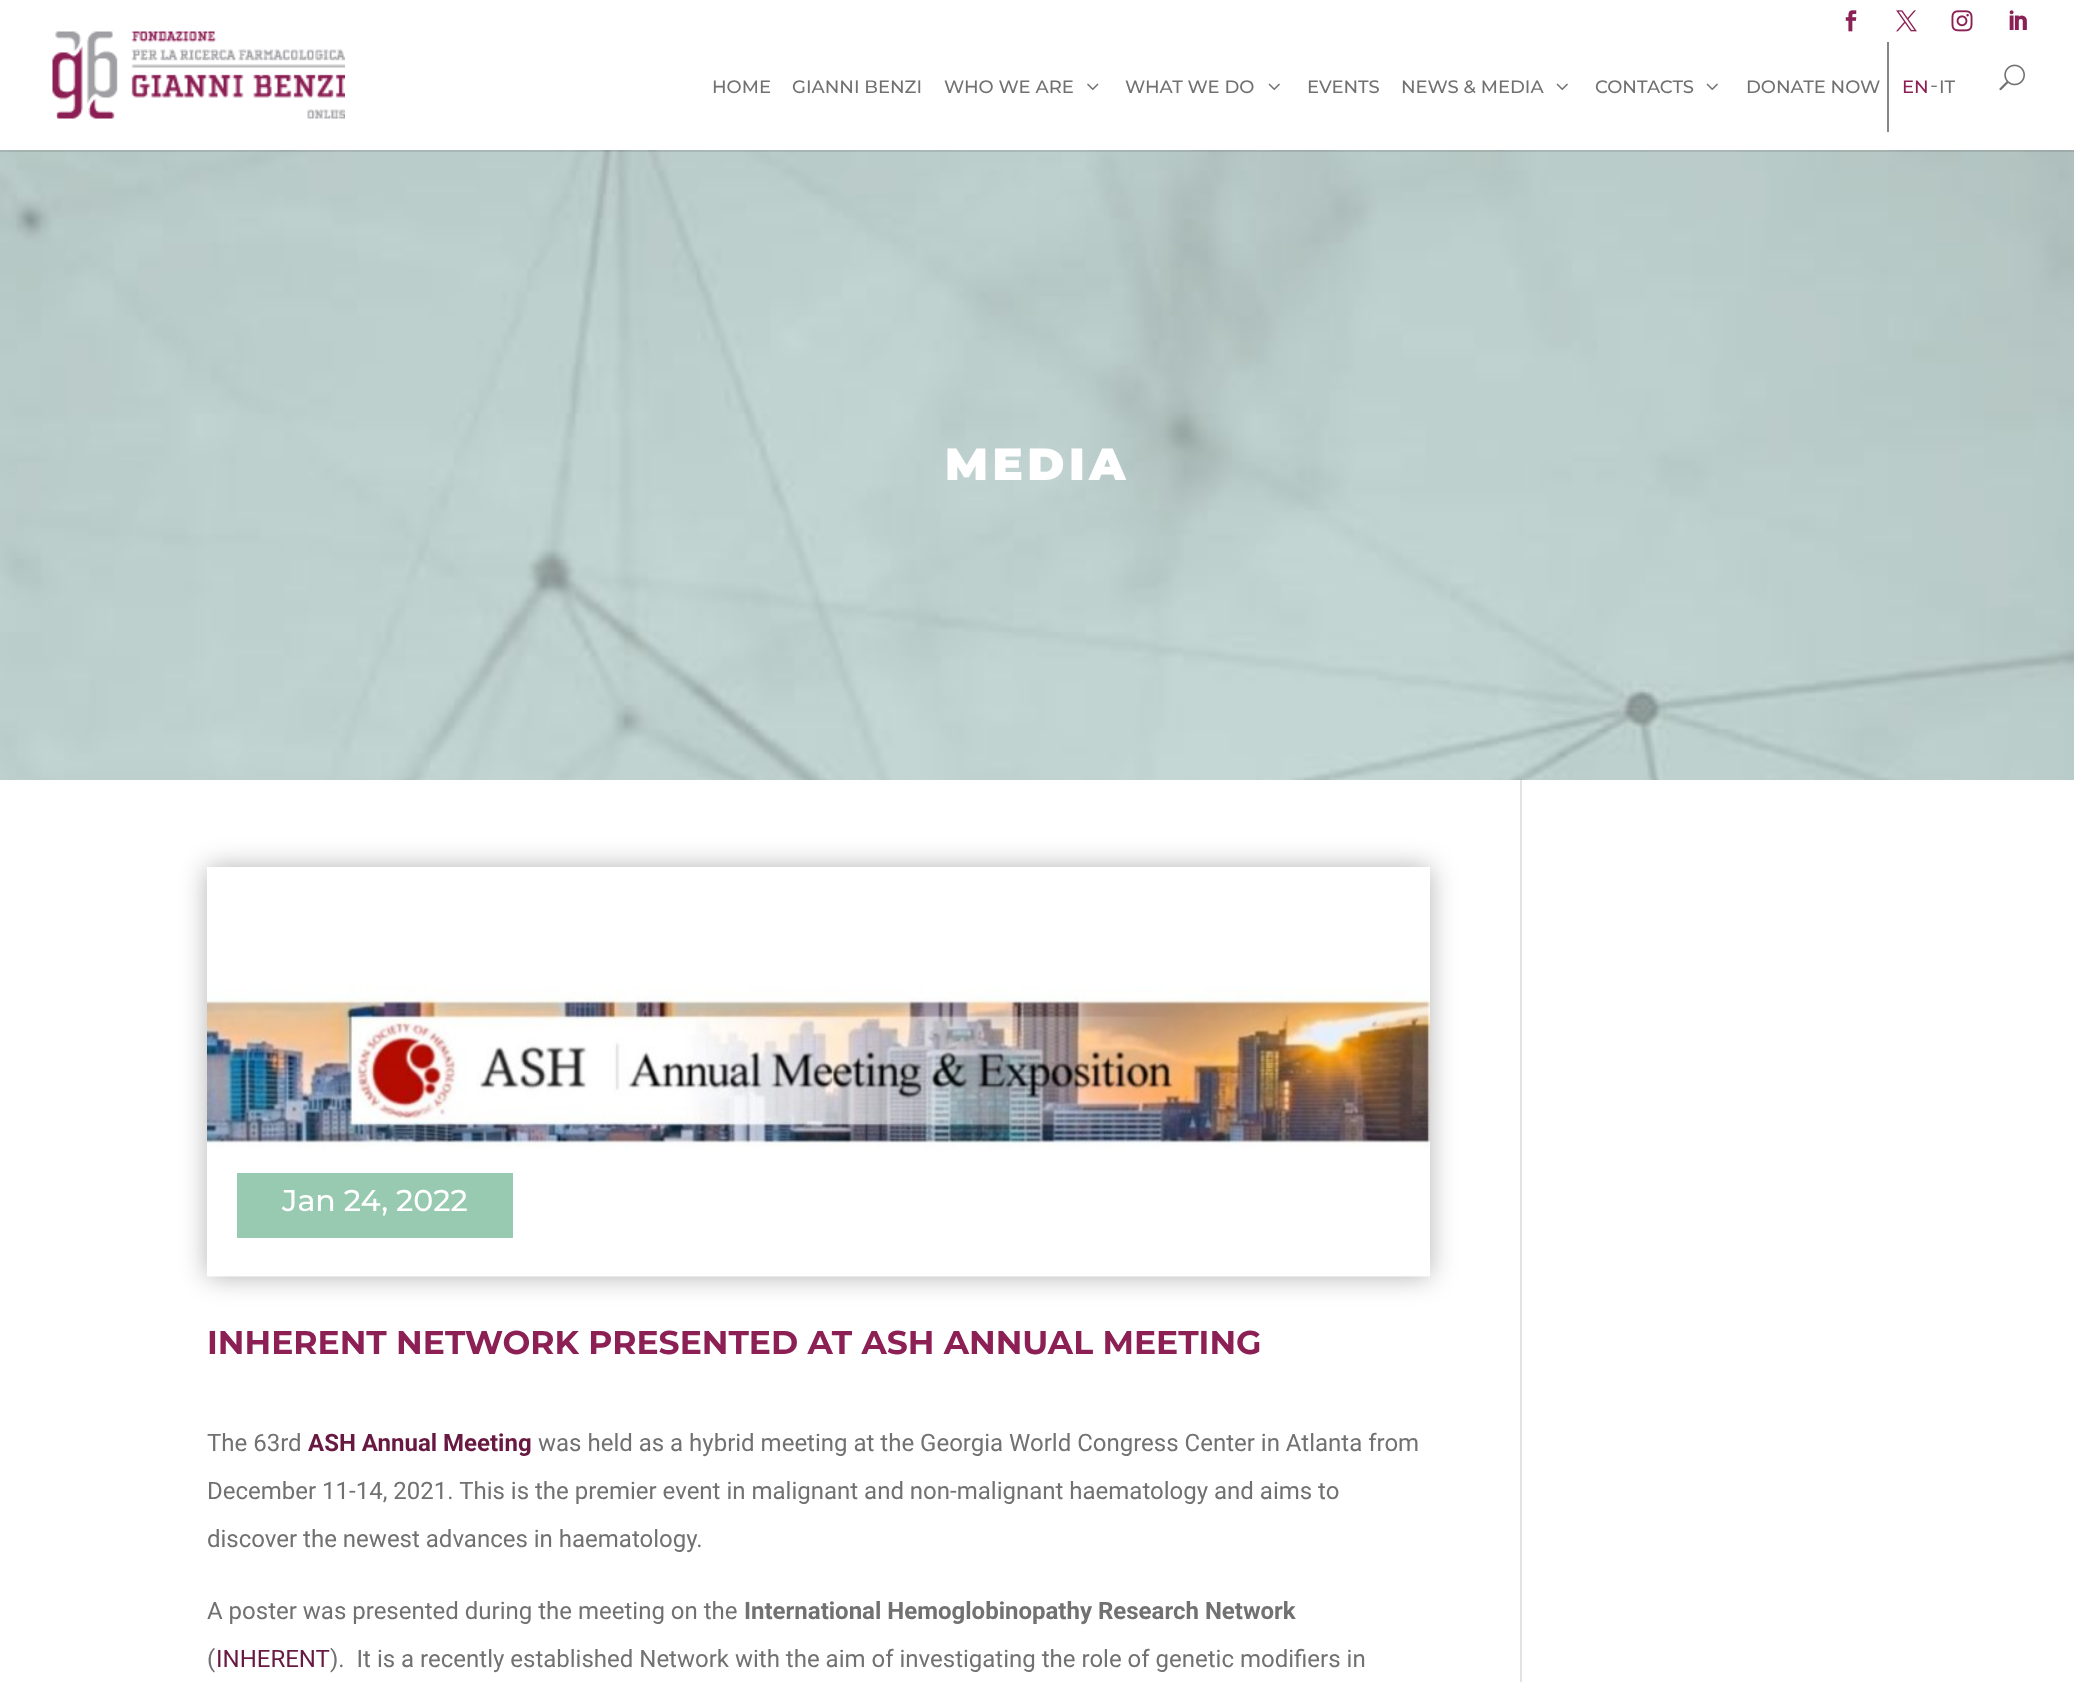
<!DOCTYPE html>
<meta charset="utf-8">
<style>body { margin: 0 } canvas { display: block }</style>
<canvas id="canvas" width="2074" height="1682"></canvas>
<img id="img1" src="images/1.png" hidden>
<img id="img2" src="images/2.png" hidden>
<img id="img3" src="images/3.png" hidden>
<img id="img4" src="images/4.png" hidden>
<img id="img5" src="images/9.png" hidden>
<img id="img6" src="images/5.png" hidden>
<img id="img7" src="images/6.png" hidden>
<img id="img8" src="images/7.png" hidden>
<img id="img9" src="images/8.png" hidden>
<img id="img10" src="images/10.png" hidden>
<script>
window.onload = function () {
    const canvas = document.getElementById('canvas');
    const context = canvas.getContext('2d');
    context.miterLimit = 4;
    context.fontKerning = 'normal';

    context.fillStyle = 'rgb(255, 255, 255)';
    context.fillRect(0, 0, 2074, 1682);
    context.drawImage(document.getElementById('img1'), 1845, 10, 12, 22);
    context.drawImage(document.getElementById('img2'), 1896, 10, 21, 22);
    context.drawImage(document.getElementById('img3'), 1951, 10, 22, 22);
    context.drawImage(document.getElementById('img4'), 2009, 10, 18, 20);
    context.drawImage(document.getElementById('img5'), 0, 150, 2074, 630);
    context.fillStyle = 'rgba(0, 0, 0, 0.1)';
    context.beginPath();
    context.moveTo(0, 150);
    context.lineTo(0, 152);
    context.lineTo(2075, 152);
    context.lineTo(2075, 2);
    context.lineTo(2074, 2);
    context.lineTo(2074, 150);
    context.closePath();
    context.fill();
    context.drawImage(document.getElementById('img6'), 52, 31, 293, 88);
    context.drawImage(document.getElementById('img7'), 1087, 83, 12, 7);
    context.drawImage(document.getElementById('img8'), 1268, 83, 12, 7);
    context.drawImage(document.getElementById('img8'), 1556, 83, 12, 7);
    context.drawImage(document.getElementById('img8'), 1706, 83, 12, 7);
    context.fillStyle = 'rgb(134, 134, 134)';
    context.fillRect(1887, 42, 2, 90);
    context.drawImage(document.getElementById('img9'), 1999, 64, 26, 27);
    context.fillStyle = 'rgba(0, 0, 0, 0.3)';
    context.filter = 'blur(13.5px)';
    context.beginPath();
    context.rect(207, 867, 1223, 410);
    context.fill();
    context.filter = 'none';
    context.drawImage(document.getElementById('img10'), 207, 867, 1223, 410);
    context.fillStyle = 'rgb(152, 202, 177)';
    context.fillRect(237, 1173, 276, 65);
    context.fillStyle = 'rgb(226, 226, 226)';
    context.fillRect(1520, 780, 2, 902);
    context.font = '100 18px "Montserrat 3"';
    context.fillStyle = 'rgb(113, 113, 113)';
    context.fillText('HOME', 712, 93);
    context.fillText('GIANNI BENZI', 792, 93);
    context.fillText('WHO WE ARE', 944, 93);
    context.fillText('WHAT WE DO', 1125, 93);
    context.fillText('EVENTS', 1307, 93);
    context.fillText('NEWS & MEDIA', 1401, 93);
    context.fillText('CONTACTS', 1595, 93);
    context.fillText('DONATE NOW', 1746, 93);
    context.fillStyle = 'rgb(140, 32, 85)';
    context.fillText('EN', 1902, 93);
    context.font = '100 21px "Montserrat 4"';
    context.fillStyle = 'rgb(113, 113, 113)';
    context.fillText('-', 1930, 92);
    context.font = '100 18px "Montserrat 3"';
    context.fillText('IT', 1939, 93);
    context.letterSpacing = '4.5px';
    context.font = '100 45px Montserrat';
    context.fillStyle = 'rgb(255, 255, 255)';
    context.fillText('MEDIA', 945, 480);
    context.letterSpacing = '0px';
    context.font = '100 30px "Montserrat 3"';
    context.fillText('Jan 24, 2022', 282, 1211);
    context.font = '100 33px "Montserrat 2"';
    context.fillStyle = 'rgb(140, 32, 85)';
    context.fillText('INHERENT NETWORK PRESENTED AT ASH ANNUAL MEETING', 207, 1354);
    context.font = '24px Roboto';
    context.fillStyle = 'rgb(113, 113, 113)';
    context.fillText('The 63rd', 207, 1451);
    context.font = 'bold 24px Roboto';
    context.fillStyle = 'rgb(104, 25, 66)';
    context.fillText('ASH Annual Meeting', 308, 1451);
    context.font = '24px Roboto';
    context.fillStyle = 'rgb(113, 113, 113)';
    context.fillText('was held as a hybrid meeting at the Georgia World Congress Center in Atlanta from', 538, 1451);
    context.fillText('December 11-14, 2021. This is the premier event in malignant and non-malignant haematology and aims to', 207, 1499);
    context.fillText('discover the newest advances in haematology.', 207, 1547);
    context.fillText('A poster was presented during the meeting on the', 207, 1619);
    context.font = 'bold 24px Roboto';
    context.fillText('International Hemoglobinopathy Research Network', 744, 1619);
    context.font = '24px Roboto';
    context.fillText('(', 207, 1667);
    context.fillStyle = 'rgb(104, 25, 66)';
    context.fillText('INHERENT', 216, 1667);
    context.fillStyle = 'rgb(113, 113, 113)';
    context.fillText(').  It is a recently established Network with the aim of investigating the role of genetic modifiers in', 330, 1667);
};
</script>
